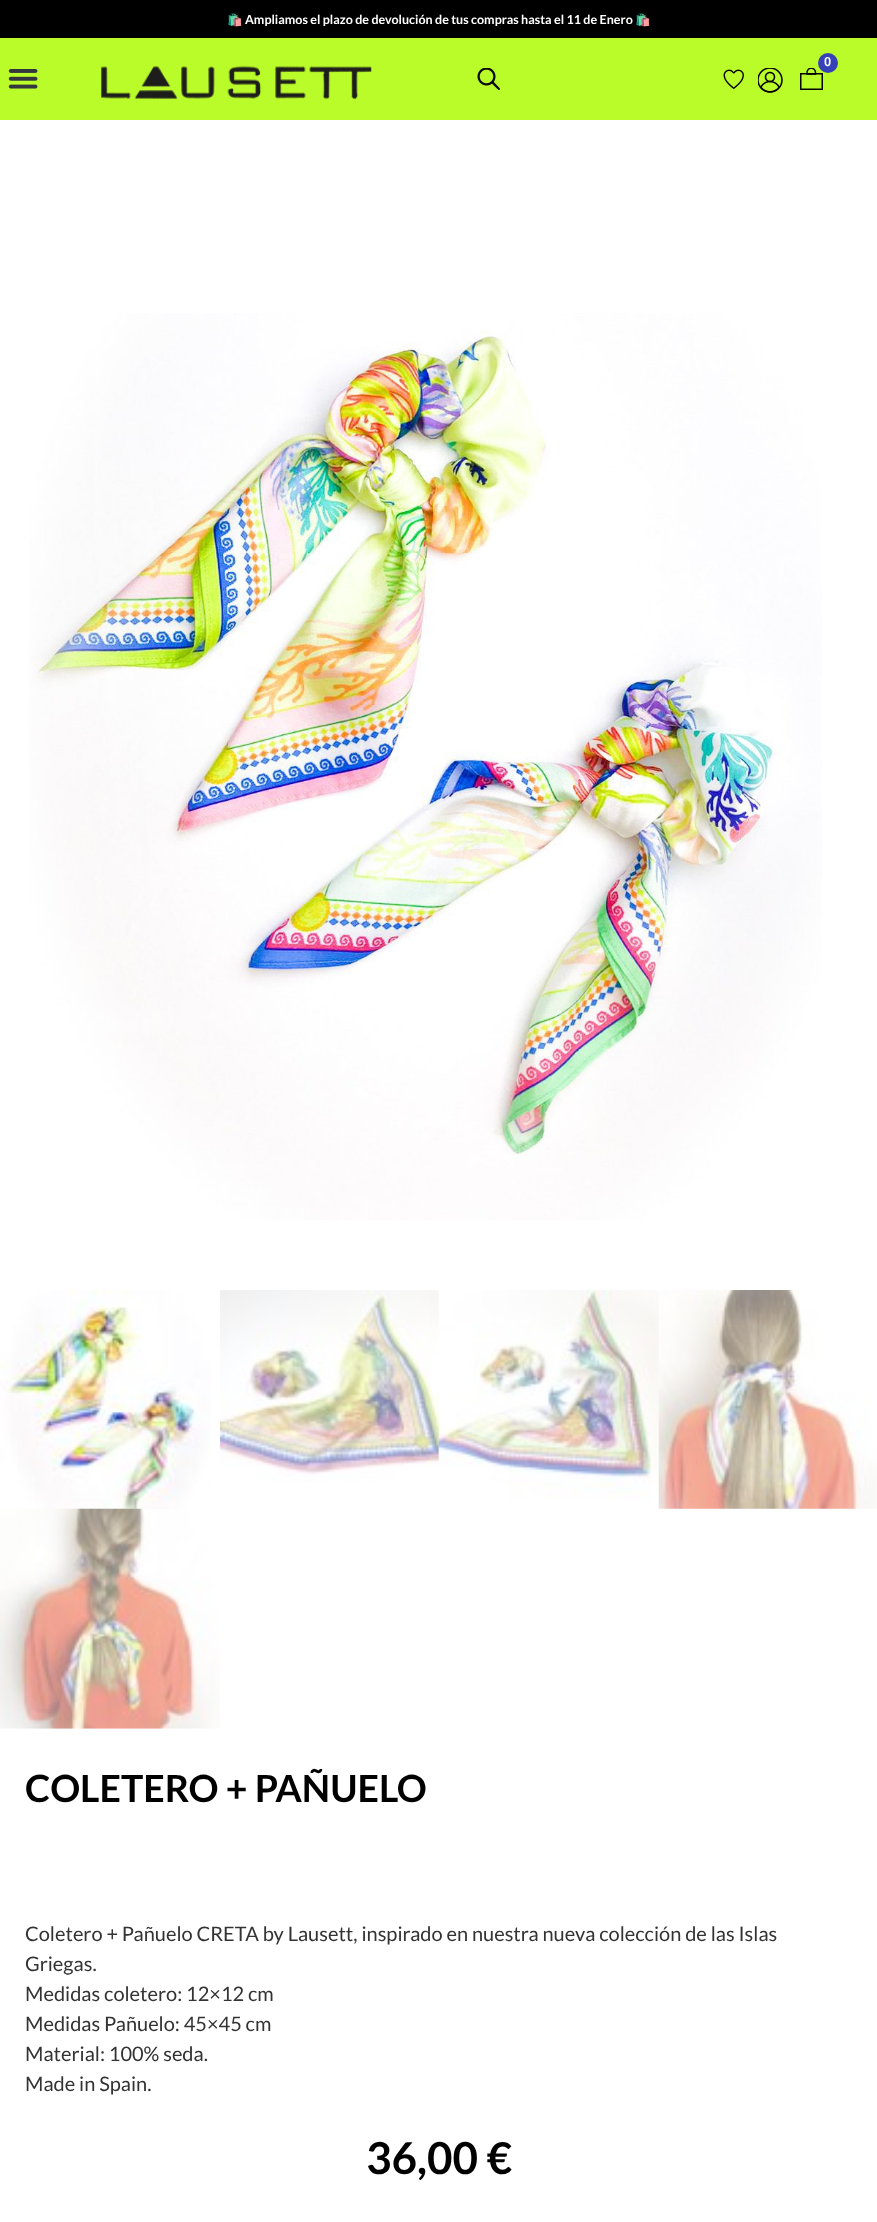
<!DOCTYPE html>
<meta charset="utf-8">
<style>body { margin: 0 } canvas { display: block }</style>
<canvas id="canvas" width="877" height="2222"></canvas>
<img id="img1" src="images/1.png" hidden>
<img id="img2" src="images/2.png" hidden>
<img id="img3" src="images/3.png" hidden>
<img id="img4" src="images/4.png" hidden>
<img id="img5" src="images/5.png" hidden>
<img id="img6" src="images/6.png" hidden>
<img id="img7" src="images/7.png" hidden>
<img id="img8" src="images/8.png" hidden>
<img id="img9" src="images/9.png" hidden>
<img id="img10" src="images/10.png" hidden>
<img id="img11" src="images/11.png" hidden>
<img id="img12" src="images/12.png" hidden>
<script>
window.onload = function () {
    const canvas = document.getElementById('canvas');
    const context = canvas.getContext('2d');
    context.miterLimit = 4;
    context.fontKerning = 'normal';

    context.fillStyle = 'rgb(255, 255, 255)';
    context.fillRect(0, 0, 877, 2222);
    context.fillStyle = 'rgb(186, 251, 42)';
    context.fillRect(0, 38, 877, 82);
    context.fillStyle = 'rgb(0, 0, 0)';
    context.fillRect(0, 0, 877, 38);
    context.drawImage(document.getElementById('img1'), 800, 68, 23, 22);
    context.fillStyle = 'rgb(55, 65, 183)';
    context.beginPath();
    context.arc(828, 63, 10, 0, 2 * Math.PI);
    context.fill();
    context.drawImage(document.getElementById('img2'), 723, 69, 21, 21);
    context.drawImage(document.getElementById('img3'), 758, 68, 25, 25);
    context.drawImage(document.getElementById('img4'), 8, 69, 30, 20);
    context.drawImage(document.getElementById('img5'), 101, 66, 271, 33);
    context.drawImage(document.getElementById('img6'), 477, 68, 23, 22);
    context.drawImage(document.getElementById('img7'), 29, 313, 793, 907);
    context.drawImage(document.getElementById('img8'), 0, 1290, 211, 219);
    context.drawImage(document.getElementById('img9'), 220, 1290, 219, 192);
    context.drawImage(document.getElementById('img10'), 438, 1290, 221, 211);
    context.drawImage(document.getElementById('img11'), 658, 1290, 219, 219);
    context.drawImage(document.getElementById('img12'), 0, 1508, 220, 221);
    context.font = 'bold 12.5px Noto Color Emoji';
    context.fillStyle = 'rgb(255, 255, 255)';
    context.fillText('🛍️', 227, 24);
    context.font = 'bold 12.5px Lato';
    context.fillText('Ampliamos el plazo de devolución de tus compras hasta el 11 de Enero', 245, 24);
    context.font = 'bold 12.5px Noto Color Emoji';
    context.fillText('🛍️', 635, 24);
    context.font = '600 12.5px Roboto';
    context.fillText('0', 824, 66);
    context.font = 'bold 37.5px Lato';
    context.fillStyle = 'rgb(0, 0, 0)';
    context.fillText('COLETERO + PAÑUELO', 25, 1802);
    context.font = '20px Lato';
    context.fillStyle = 'rgb(51, 51, 51)';
    context.fillText('Coletero + Pañuelo CRETA by Lausett, inspirado en nuestra nueva colección de las Islas', 25, 1941);
    context.fillText('Griegas.', 25, 1971);
    context.fillText('Medidas coletero: 12×12 cm', 25, 2001);
    context.fillText('Medidas Pañuelo: 45×45 cm', 25, 2031);
    context.fillText('Material: 100% seda.', 25, 2061);
    context.fillText('Made in Spain.', 25, 2091);
    context.font = 'bold 44px Lato';
    context.fillStyle = 'rgb(0, 0, 0)';
    context.fillText('36,00 €', 366, 2174);
};
</script>
